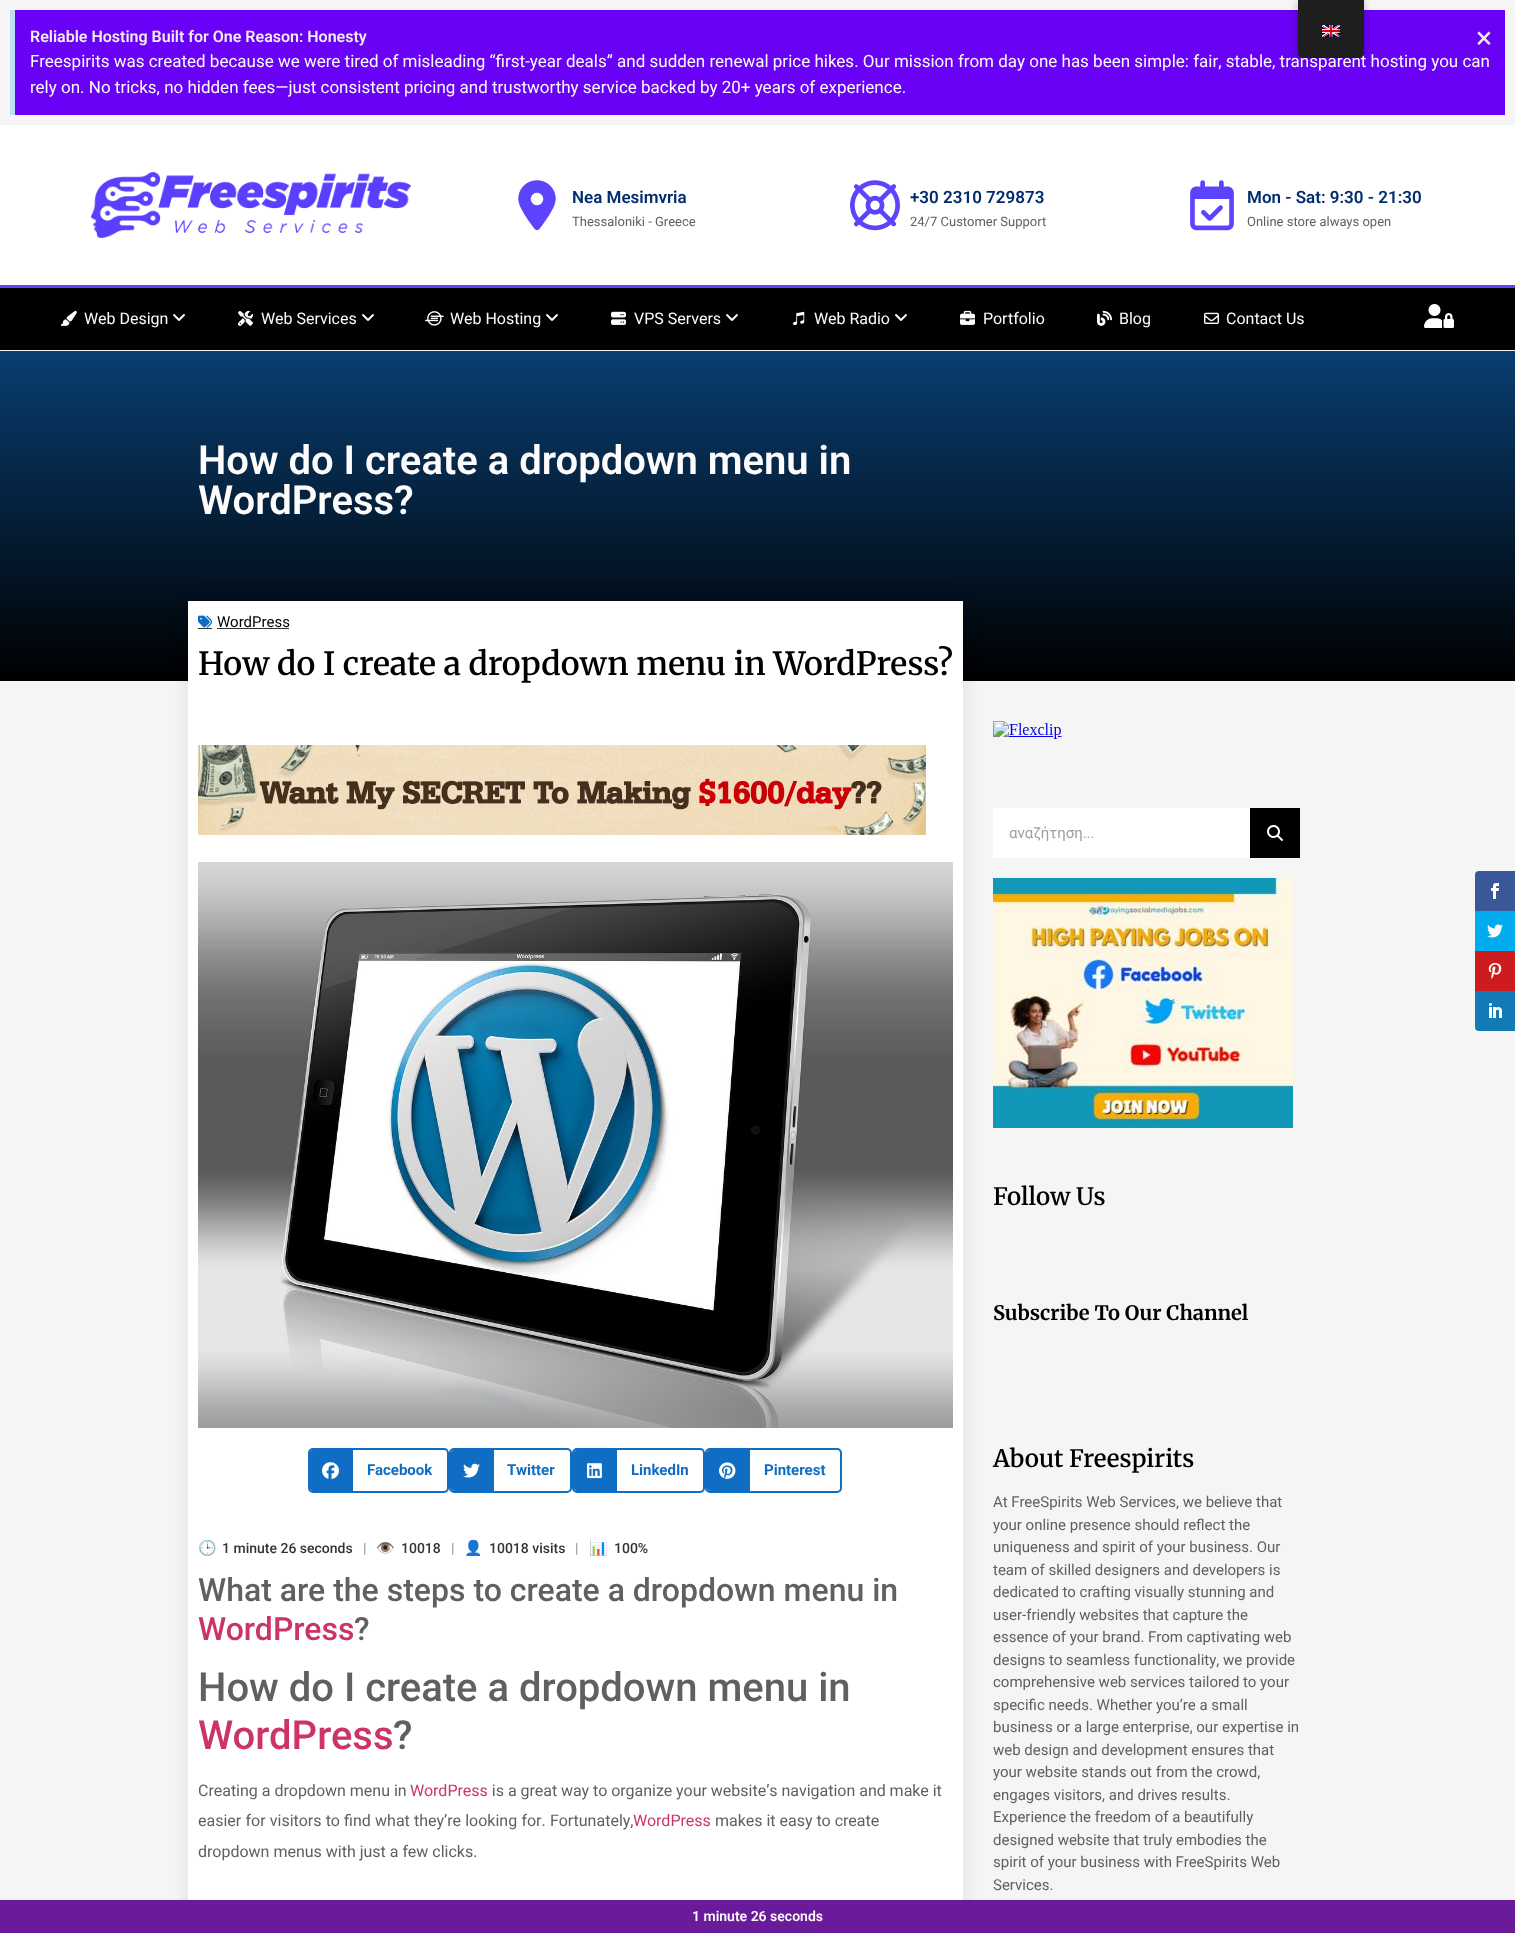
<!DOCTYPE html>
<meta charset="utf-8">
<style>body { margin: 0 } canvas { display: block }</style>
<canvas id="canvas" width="1515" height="1933"></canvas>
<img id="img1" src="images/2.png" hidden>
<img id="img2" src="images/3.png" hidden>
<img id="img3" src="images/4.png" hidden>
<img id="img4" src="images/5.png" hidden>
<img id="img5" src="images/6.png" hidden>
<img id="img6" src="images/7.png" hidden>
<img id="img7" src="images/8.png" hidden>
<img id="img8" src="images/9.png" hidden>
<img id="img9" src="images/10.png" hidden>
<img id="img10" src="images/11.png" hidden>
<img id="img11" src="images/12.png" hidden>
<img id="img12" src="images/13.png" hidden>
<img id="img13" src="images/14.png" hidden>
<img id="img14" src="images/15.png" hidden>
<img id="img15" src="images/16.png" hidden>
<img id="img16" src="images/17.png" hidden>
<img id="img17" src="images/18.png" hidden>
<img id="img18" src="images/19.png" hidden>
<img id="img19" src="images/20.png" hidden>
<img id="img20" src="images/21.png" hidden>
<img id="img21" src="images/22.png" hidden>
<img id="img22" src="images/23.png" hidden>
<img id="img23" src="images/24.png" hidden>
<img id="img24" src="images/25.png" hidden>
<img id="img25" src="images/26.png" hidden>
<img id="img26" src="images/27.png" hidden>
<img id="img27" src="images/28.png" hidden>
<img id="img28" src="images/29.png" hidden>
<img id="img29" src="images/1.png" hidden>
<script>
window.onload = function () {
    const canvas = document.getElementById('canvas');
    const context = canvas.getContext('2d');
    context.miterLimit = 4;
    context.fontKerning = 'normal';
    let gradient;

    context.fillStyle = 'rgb(245, 245, 245)';
    context.fillRect(0, 0, 1515, 1933);
    context.fillStyle = 'rgb(104, 1, 245)';
    context.fillRect(15, 10, 1490, 105);
    context.fillStyle = 'rgba(0, 0, 0, 0.25)';
    context.filter = 'blur(4px)';
    context.beginPath();
    context.roundRect(1298, 0, 66, 58, 5);
    context.fill();
    context.filter = 'none';
    context.fillStyle = 'rgb(188, 223, 241)';
    context.fillRect(10, 10, 5, 105);
    context.fillStyle = 'rgb(255, 255, 255)';
    context.fillRect(0, 125, 1515, 160);
    context.drawImage(document.getElementById('img1'), 91, 172, 320, 66);
    context.drawImage(document.getElementById('img2'), 518, 180, 38, 51);
    context.drawImage(document.getElementById('img3'), 850, 180, 50, 51);
    context.drawImage(document.getElementById('img4'), 1190, 180, 44, 51);
    context.fillStyle = 'rgb(0, 0, 0)';
    context.fillRect(0, 288, 1515, 62);
    context.fillStyle = 'rgb(92, 68, 252)';
    context.fillRect(0, 285, 1515, 3);
    context.drawImage(document.getElementById('img5'), 61, 310, 16, 16);
    context.drawImage(document.getElementById('img6'), 173, 314, 12, 7);
    context.drawImage(document.getElementById('img7'), 238, 310, 15, 16);
    context.drawImage(document.getElementById('img6'), 362, 314, 12, 7);
    context.drawImage(document.getElementById('img8'), 425, 311, 19, 15);
    context.drawImage(document.getElementById('img6'), 546, 314, 12, 7);
    context.drawImage(document.getElementById('img9'), 611, 311, 15, 14);
    context.drawImage(document.getElementById('img6'), 726, 314, 12, 7);
    context.drawImage(document.getElementById('img10'), 793, 311, 12, 15);
    context.drawImage(document.getElementById('img6'), 895, 314, 12, 7);
    context.drawImage(document.getElementById('img11'), 960, 310, 15, 15);
    context.drawImage(document.getElementById('img12'), 1097, 310, 15, 16);
    context.drawImage(document.getElementById('img13'), 1204, 312, 15, 12);
    context.drawImage(document.getElementById('img14'), 1424, 304, 30, 24);
    gradient = context.createLinearGradient(758, 351, 758, 681);
    gradient.addColorStop(0, 'rgb(9, 62, 113)');
    gradient.addColorStop(1, 'rgb(0, 0, 0)');
    context.fillStyle = gradient;
    context.fillRect(0, 351, 1515, 330);
    context.fillStyle = 'rgba(0, 0, 0, 0.09)';
    context.filter = 'blur(10px)';
    context.beginPath();
    context.rect(188, 601, 775, 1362);
    context.fill();
    context.filter = 'none';
    context.fillStyle = 'rgb(255, 255, 255)';
    context.fillRect(188, 601, 775, 1299);
    context.drawImage(document.getElementById('img15'), 198, 615, 14, 13);
    context.fillStyle = 'rgb(51, 51, 51)';
    context.fillRect(198, 628, 14, 1);
    context.fillRect(217, 628, 72, 1);
    context.drawImage(document.getElementById('img16'), 198, 745, 728, 90);
    context.drawImage(document.getElementById('img17'), 198, 862, 755, 566);
    context.beginPath();
    context.roundRect(309, 1449, 139, 43, 4);
    context.strokeStyle = 'rgb(16, 109, 196)';
    context.lineWidth = 2;
    context.stroke();
    context.fillStyle = 'rgb(16, 109, 196)';
    context.beginPath();
    context.roundRect(310, 1450, 43, 41, [3, 0, 0, 3]);
    context.fill();
    context.drawImage(document.getElementById('img18'), 322, 1462, 17, 17);
    context.beginPath();
    context.roundRect(450, 1449, 121, 43, 4);
    context.stroke();
    context.beginPath();
    context.roundRect(451, 1450, 43, 41, [3, 0, 0, 3]);
    context.fill();
    context.drawImage(document.getElementById('img19'), 463, 1463, 17, 15);
    context.beginPath();
    context.roundRect(573, 1449, 131, 43, 4);
    context.stroke();
    context.beginPath();
    context.roundRect(574, 1450, 43, 41, [3, 0, 0, 3]);
    context.fill();
    context.drawImage(document.getElementById('img20'), 587, 1463, 15, 16);
    context.beginPath();
    context.roundRect(706, 1449, 135, 43, 4);
    context.stroke();
    context.beginPath();
    context.roundRect(707, 1450, 43, 41, [3, 0, 0, 3]);
    context.fill();
    context.drawImage(document.getElementById('img21'), 719, 1462, 17, 17);
    context.drawImage(document.getElementById('img22'), 993, 721, 69, 18);
    context.fillStyle = 'rgb(255, 255, 255)';
    context.fillRect(993, 808, 257, 50);
    context.fillStyle = 'rgb(0, 0, 0)';
    context.fillRect(1250, 808, 50, 50);
    context.drawImage(document.getElementById('img23'), 1267, 825, 16, 16);
    context.drawImage(document.getElementById('img24'), 993, 878, 300, 250);
    context.fillStyle = 'rgb(58, 87, 154)';
    context.beginPath();
    context.roundRect(1475, 871, 40, 40, [4, 0, 0, 0]);
    context.fill();
    context.drawImage(document.getElementById('img25'), 1491, 883, 8, 16);
    context.fillStyle = 'rgb(0, 171, 240)';
    context.fillRect(1475, 911, 40, 40);
    context.drawImage(document.getElementById('img26'), 1487, 924, 16, 14);
    context.fillStyle = 'rgb(205, 28, 31)';
    context.fillRect(1475, 951, 40, 40);
    context.drawImage(document.getElementById('img27'), 1488, 963, 14, 16);
    context.fillStyle = 'rgb(18, 123, 182)';
    context.beginPath();
    context.roundRect(1475, 991, 40, 40, [0, 0, 0, 4]);
    context.fill();
    context.drawImage(document.getElementById('img28'), 1489, 1003, 13, 15);
    context.fillStyle = 'rgba(0, 0, 0, 0.15)';
    context.filter = 'blur(1.5px)';
    context.beginPath();
    context.rect(0, 1901, 1515, 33);
    context.fill();
    context.filter = 'none';
    context.fillStyle = 'rgb(106, 27, 154)';
    context.fillRect(0, 1900, 1515, 33);
    context.font = '600 16px Roboto';
    context.fillStyle = 'rgb(243, 237, 237)';
    context.fillText('Reliable Hosting Built for One Reason: Honesty', 30, 42);
    context.font = '30px Roboto';
    context.fillText('×', 1476, 48);
    context.font = '17px Roboto';
    context.fillStyle = 'rgb(253, 251, 251)';
    context.fillText('Freespirits was created because we were tired of misleading “first-year deals” and sudden renewal price hikes. Our mission from day one has been simple: fair, stable, transparent hosting you can', 30, 67);
    context.fillStyle = 'rgb(30, 30, 30)';
    context.beginPath();
    context.roundRect(1298, 0, 66, 58, [0, 0, 5, 5]);
    context.fill();
    context.drawImage(document.getElementById('img29'), 1322, 25, 18, 12);
    context.fillStyle = 'rgb(253, 251, 251)';
    context.fillText('rely on. No tricks, no hidden fees—just consistent pricing and trustworthy service backed by 20+ years of experience.', 30, 93);
    context.font = '600 17px Roboto';
    context.fillStyle = 'rgb(1, 44, 109)';
    context.fillText('Nea Mesimvria', 572, 203);
    context.font = '13px Roboto';
    context.fillStyle = 'rgb(97, 96, 96)';
    context.fillText('Thessaloniki - Greece', 572, 226);
    context.font = '600 17px Roboto';
    context.fillStyle = 'rgb(1, 44, 109)';
    context.fillText('+30 2310 729873', 910, 203);
    context.font = '13px Roboto';
    context.fillStyle = 'rgb(97, 96, 96)';
    context.fillText('24/7 Customer Support', 910, 226);
    context.font = '600 17px Roboto';
    context.fillStyle = 'rgb(1, 44, 109)';
    context.fillText('Mon - Sat: 9:30 - 21:30', 1247, 203);
    context.font = '13px Roboto';
    context.fillStyle = 'rgb(97, 96, 96)';
    context.fillText('Online store always open', 1247, 226);
    context.font = '16px Roboto';
    context.fillStyle = 'rgb(253, 251, 251)';
    context.fillText('Web Design', 84, 324);
    context.fillText('Web Services', 261, 324);
    context.fillText('Web Hosting', 450, 324);
    context.fillText('VPS Servers', 634, 324);
    context.fillText('Web Radio', 814, 324);
    context.fillText('Portfolio', 983, 324);
    context.fillText('Blog', 1119, 324);
    context.fillText('Contact Us', 1226, 324);
    context.font = '600 40px Roboto';
    context.fillText('How do I create a dropdown menu in', 198, 474);
    context.fillText('WordPress?', 198, 514);
    context.font = '15px Roboto';
    context.fillStyle = 'rgb(0, 0, 0)';
    context.fillText('WordPress', 217, 627);
    context.font = '600 32px Merriweather';
    context.fillText('How do I create a dropdown menu in WordPress?', 198, 675);
    context.font = 'bold 15px Roboto';
    context.fillStyle = 'rgb(16, 109, 196)';
    context.fillText('Facebook', 367, 1475);
    context.fillText('Twitter', 507, 1475);
    context.fillText('LinkedIn', 631, 1475);
    context.fillText('Pinterest', 764, 1475);
    context.font = '15px Noto Color Emoji';
    context.fillStyle = 'rgb(106, 27, 154)';
    context.fillText('🕒', 198, 1553);
    context.font = '500 14px Roboto';
    context.fillStyle = 'rgb(51, 51, 51)';
    context.fillText('1 minute 26 seconds', 222, 1553);
    context.fillStyle = 'rgb(153, 153, 153)';
    context.fillText('|', 363, 1553);
    context.font = '15px Noto Color Emoji';
    context.fillStyle = 'rgb(106, 27, 154)';
    context.fillText('👁️', 376, 1553);
    context.font = '500 14px Roboto';
    context.fillStyle = 'rgb(51, 51, 51)';
    context.fillText('10018', 401, 1553);
    context.fillStyle = 'rgb(153, 153, 153)';
    context.fillText('|', 451, 1553);
    context.font = '15px Noto Color Emoji';
    context.fillStyle = 'rgb(106, 27, 154)';
    context.fillText('👤', 464, 1553);
    context.font = '500 14px Roboto';
    context.fillStyle = 'rgb(51, 51, 51)';
    context.fillText('10018 visits', 489, 1553);
    context.fillStyle = 'rgb(153, 153, 153)';
    context.fillText('|', 575, 1553);
    context.font = '15px Noto Color Emoji';
    context.fillStyle = 'rgb(106, 27, 154)';
    context.fillText('📊', 589, 1553);
    context.font = '500 14px Roboto';
    context.fillStyle = 'rgb(51, 51, 51)';
    context.fillText('100%', 614, 1553);
    context.font = '500 32px Roboto';
    context.fillStyle = 'rgb(97, 96, 96)';
    context.fillText('What are the ‌steps to create a dropdown menu in', 198, 1601);
    context.fillStyle = 'rgb(204, 51, 102)';
    context.fillText('WordPress', 198, 1640);
    context.fillStyle = 'rgb(97, 96, 96)';
    context.fillText('?', 354, 1640);
    context.font = '500 40px Roboto';
    context.fillText('How do I create a dropdown menu in', 198, 1701);
    context.fillStyle = 'rgb(204, 51, 102)';
    context.fillText('WordPress', 198, 1749);
    context.fillStyle = 'rgb(97, 96, 96)';
    context.fillText('?', 393, 1749);
    context.font = '16px Roboto';
    context.fillText('Creating a dropdown ‍menu in', 198, 1796);
    context.fillStyle = 'rgb(204, 51, 102)';
    context.fillText('WordPress', 410, 1796);
    context.wordSpacing = '-0.1px';
    context.fillStyle = 'rgb(97, 96, 96)';
    context.fillText('‍ is a great way to organize your website’s navigation and make it', 488, 1796);
    context.wordSpacing = '0.25px';
    context.fillText('easier ‌for visitors to find what they’re looking for. Fortunately,', 198, 1826);
    context.wordSpacing = '0px';
    context.fillStyle = 'rgb(204, 51, 102)';
    context.fillText('WordPress', 633, 1826);
    context.fillStyle = 'rgb(97, 96, 96)';
    context.fillText('makes it easy to create', 715, 1826);
    context.fillText('dropdown menus with‌ just a few clicks.', 198, 1857);
    context.font = '15px Roboto';
    context.fillStyle = 'rgb(160, 160, 160)';
    context.fillText('αναζήτηση...', 1009, 838);
    context.font = '600 24px Merriweather';
    context.fillStyle = 'rgb(0, 0, 0)';
    context.fillText('Follow Us', 993, 1205);
    context.font = 'bold 20px Merriweather';
    context.fillText('Subscribe To Our Channel', 993, 1320);
    context.font = '600 24px Merriweather';
    context.fillText('About Freespirits', 993, 1467);
    context.font = '15px Roboto';
    context.fillStyle = 'rgb(97, 96, 96)';
    context.fillText('At FreeSpirits Web Services, we believe that', 993, 1507);
    context.fillText('your online presence should reflect the', 993, 1530);
    context.fillText('uniqueness and spirit of your business. Our', 993, 1552);
    context.fillText('team of skilled designers and developers is', 993, 1575);
    context.fillText('dedicated to crafting visually stunning and', 993, 1597);
    context.fillText('user-friendly websites that capture the', 993, 1620);
    context.fillText('essence of your brand. From captivating web', 993, 1642);
    context.fillText('designs to seamless functionality, we provide', 993, 1665);
    context.fillText('comprehensive web services tailored to your', 993, 1687);
    context.fillText('specific needs. Whether you’re a small', 993, 1710);
    context.fillText('business or a large enterprise, our expertise in', 993, 1732);
    context.fillText('web design and development ensures that', 993, 1755);
    context.fillText('your website stands out from the crowd,', 993, 1777);
    context.fillText('engages visitors, and drives results.', 993, 1800);
    context.fillText('Experience the freedom of a beautifully', 993, 1822);
    context.fillText('designed website that truly embodies the', 993, 1845);
    context.fillText('spirit of your business with FreeSpirits Web', 993, 1867);
    context.fillText('Services.', 993, 1890);
    context.font = '600 14px Roboto';
    context.fillStyle = 'rgb(253, 251, 251)';
    context.fillText('1 minute 26 seconds', 692, 1921);
};
</script>
